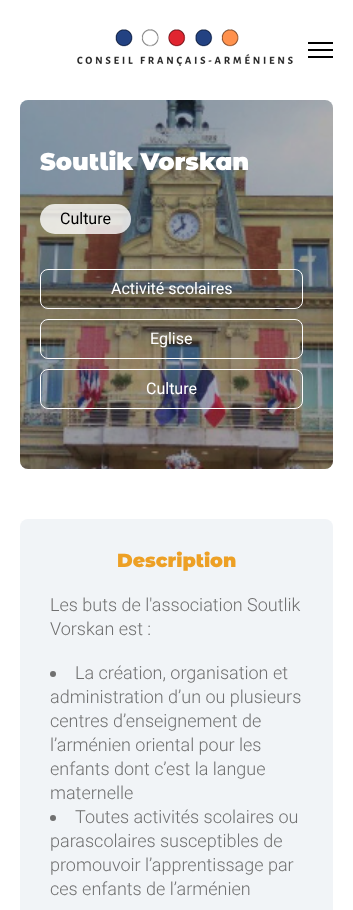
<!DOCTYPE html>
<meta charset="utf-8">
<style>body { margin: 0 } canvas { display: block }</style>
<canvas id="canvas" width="353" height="910"></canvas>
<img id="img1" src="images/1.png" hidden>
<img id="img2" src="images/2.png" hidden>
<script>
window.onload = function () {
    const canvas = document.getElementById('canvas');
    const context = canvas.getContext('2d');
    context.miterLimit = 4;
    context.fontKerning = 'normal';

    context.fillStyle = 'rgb(255, 255, 255)';
    context.fillRect(0, 0, 353, 910);
    context.drawImage(document.getElementById('img1'), 77, 29, 216, 37);
    context.fillStyle = 'rgb(0, 0, 0)';
    context.fillRect(308, 42, 25, 2);
    context.fillRect(308, 49, 25, 2);
    context.fillRect(308, 56, 25, 2);
    context.drawImage(document.getElementById('img2'), 20, 100, 313, 369);
    context.fillStyle = 'rgba(0, 0, 0, 0.3)';
    context.beginPath();
    context.roundRect(20, 100, 313, 369, 8);
    context.fill();
    context.fillStyle = 'rgba(255, 255, 255, 0.8)';
    context.beginPath();
    context.roundRect(40, 204, 91, 30, 15);
    context.fill();
    context.beginPath();
    context.roundRect(40.5, 269.5, 262, 39, 7.5);
    context.strokeStyle = 'rgb(255, 255, 255)';
    context.stroke();
    context.beginPath();
    context.roundRect(40.5, 319.5, 262, 39, 7.5);
    context.stroke();
    context.beginPath();
    context.roundRect(40.5, 369.5, 262, 39, 7.5);
    context.stroke();
    context.fillStyle = 'rgb(241, 244, 247)';
    context.beginPath();
    context.roundRect(20, 519, 313, 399, 8);
    context.fill();
    context.fillStyle = 'rgb(112, 112, 112)';
    context.beginPath();
    context.arc(53, 674, 3, 0, 2 * Math.PI);
    context.fill();
    context.beginPath();
    context.arc(53, 818, 3, 0, 2 * Math.PI);
    context.fill();
    context.font = '900 24px Montserrat Alternates';
    context.fillStyle = 'rgb(255, 255, 255)';
    context.fillText('Soutlik Vorskan', 40, 170);
    context.font = '16px Roboto';
    context.fillStyle = 'rgb(0, 0, 0)';
    context.fillText('Culture', 60, 224);
    context.fillStyle = 'rgb(255, 255, 255)';
    context.fillText('Activité scolaires', 111, 294);
    context.fillText('Eglise', 150, 344);
    context.fillText('Culture', 146, 394);
    context.font = '900 19px Montserrat Alternates';
    context.fillStyle = 'rgb(237, 160, 37)';
    context.fillText('Description', 117, 567);
    context.font = '300 18px Roboto';
    context.fillStyle = 'rgb(112, 112, 112)';
    context.fillText('Les buts de l\'association Soutlik', 50, 611);
    context.fillText('Vorskan est :', 50, 635);
    context.fillText('La création, organisation et', 75, 679);
    context.fillText('administration d’un ou plusieurs', 50, 703);
    context.fillText('centres d’enseignement de', 50, 727);
    context.fillText('l’arménien oriental pour les', 50, 751);
    context.fillText('enfants dont c’est la langue', 50, 775);
    context.fillText('maternelle', 50, 799);
    context.fillText('Toutes activités scolaires ou', 75, 823);
    context.fillText('parascolaires susceptibles de', 50, 847);
    context.fillText('promouvoir l’apprentissage par', 50, 871);
    context.fillText('ces enfants de l’arménien', 50, 895);
};
</script>
